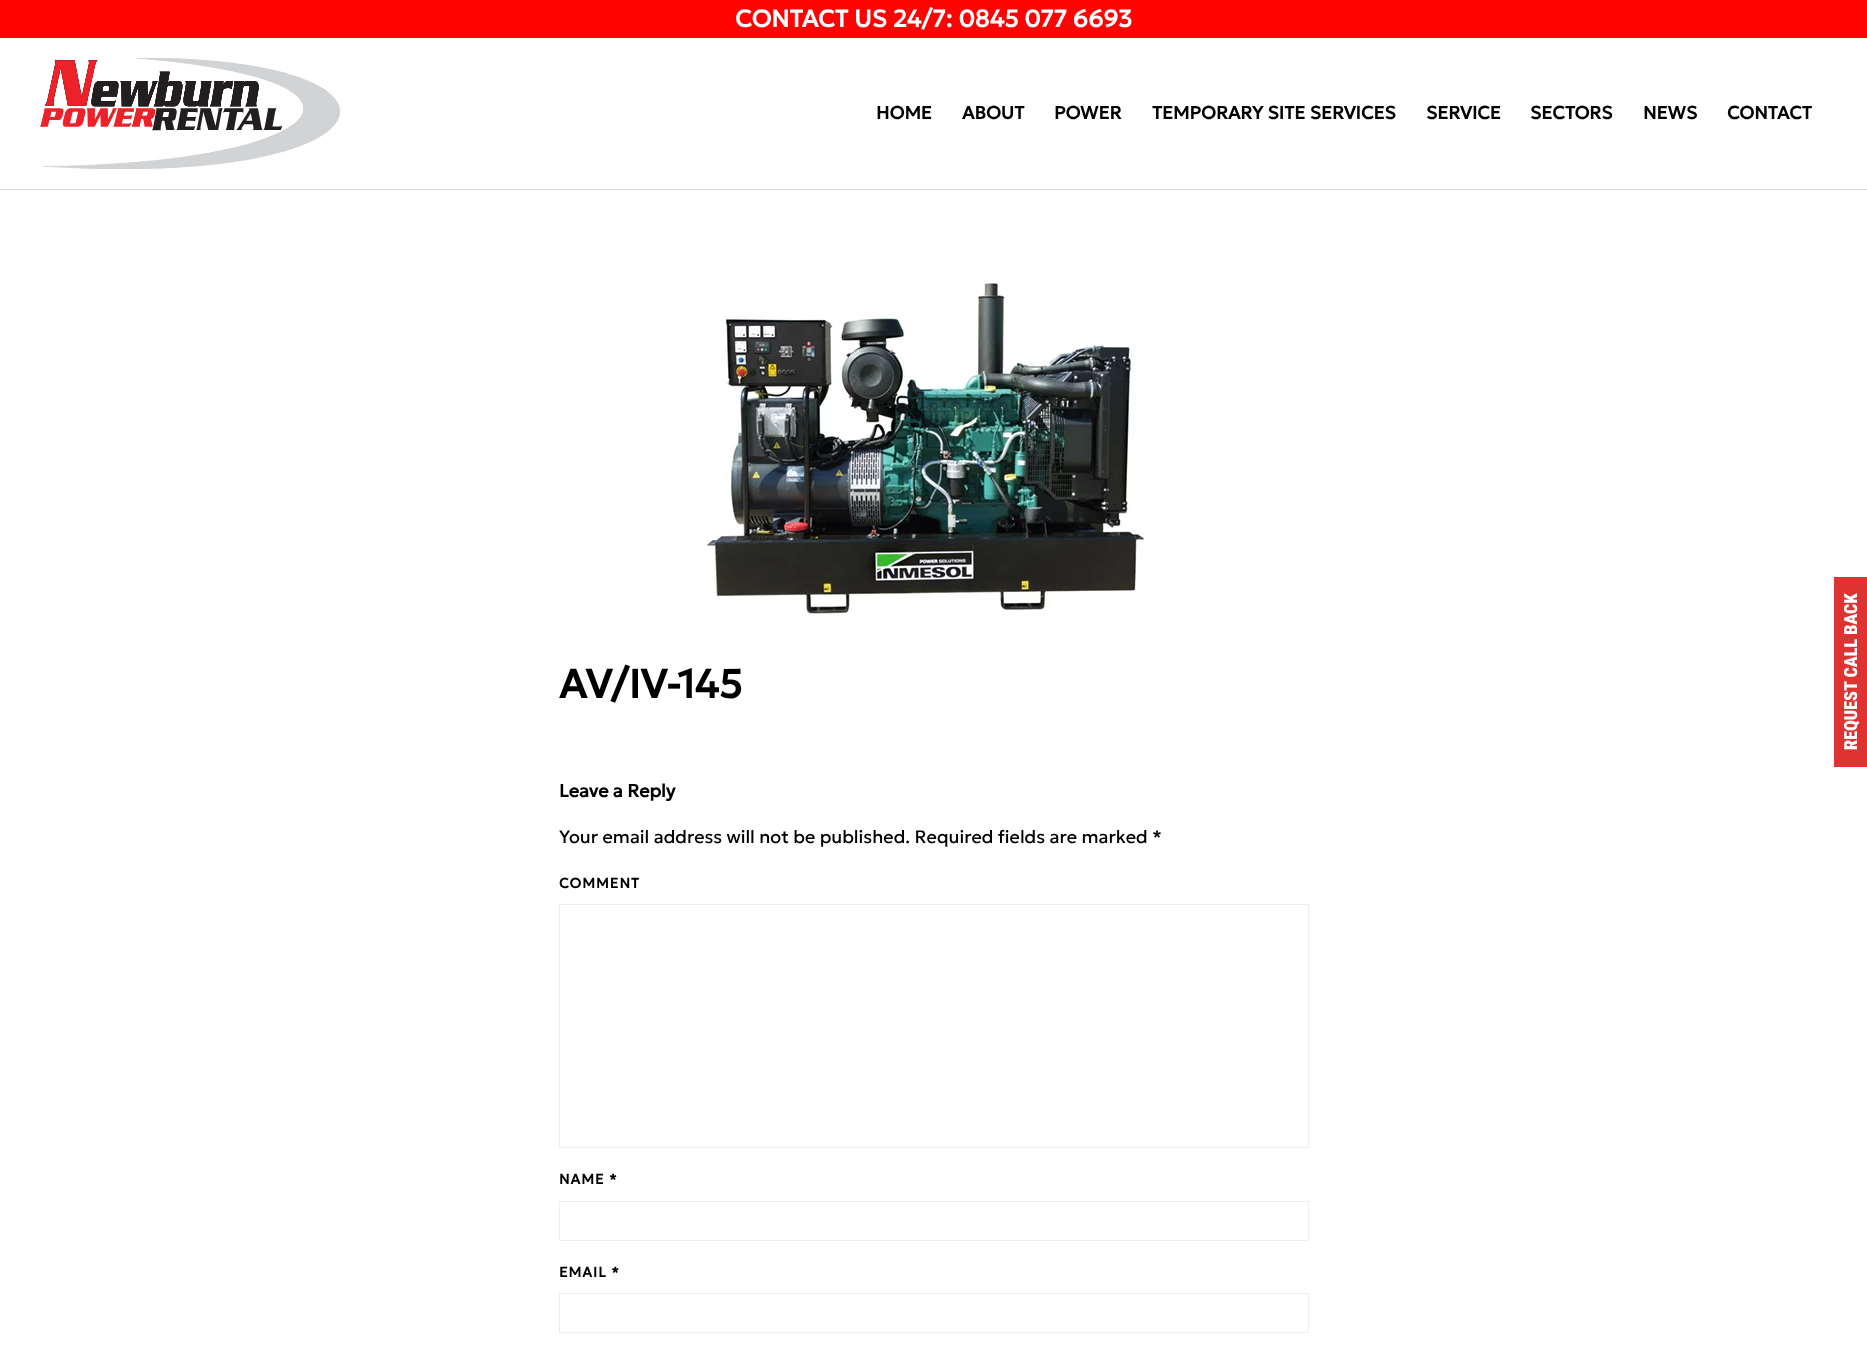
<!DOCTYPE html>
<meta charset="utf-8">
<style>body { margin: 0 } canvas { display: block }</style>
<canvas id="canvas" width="1867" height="1353"></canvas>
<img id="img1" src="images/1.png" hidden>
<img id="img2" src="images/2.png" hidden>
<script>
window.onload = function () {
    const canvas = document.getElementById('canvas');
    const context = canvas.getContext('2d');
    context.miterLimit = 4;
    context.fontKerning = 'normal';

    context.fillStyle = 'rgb(255, 255, 255)';
    context.fillRect(0, 0, 1867, 1353);
    context.fillStyle = 'rgb(255, 2, 2)';
    context.fillRect(0, 0, 1867, 38);
    context.fillStyle = 'rgb(212, 212, 212)';
    context.fillRect(0, 189, 1867, 1);
    context.drawImage(document.getElementById('img1'), 40, 58, 300, 111);
    context.drawImage(document.getElementById('img2'), 707, 280, 439, 336);
    context.strokeStyle = 'rgb(238, 238, 238)';
    context.strokeRect(559.5, 904.5, 749, 243);
    context.strokeRect(559.5, 1201.5, 749, 39);
    context.strokeRect(559.5, 1293.5, 749, 39);
    context.fillStyle = 'rgb(221, 51, 51)';
    context.fillRect(1834, 577, 33, 190);
    context.font = 'bold 24px Geologica';
    context.fillStyle = 'rgb(255, 255, 255)';
    context.fillText('CONTACT US 24/7: 0845 077 6693', 735, 27);
    context.font = 'bold 18px Geologica';
    context.fillStyle = 'rgb(0, 0, 0)';
    context.fillText('HOME', 876, 119);
    context.fillText('ABOUT', 962, 119);
    context.fillText('POWER', 1054, 119);
    context.fillText('TEMPORARY SITE SERVICES', 1152, 119);
    context.fillText('SERVICE', 1426, 119);
    context.fillText('SECTORS', 1530, 119);
    context.fillText('NEWS', 1643, 119);
    context.fillText('CONTACT', 1727, 119);
    context.font = 'bold 40px Geologica';
    context.fillText('AV/IV-145', 559, 698);
    context.font = 'bold 18px Geologica';
    context.fillText('Leave a Reply', 559, 797);
    context.font = '100 18px Geologica';
    context.fillText('Your email address will not be published. Required fields are marked *', 559, 843);
    context.letterSpacing = '1px';
    context.font = 'bold 14px Geologica';
    context.fillText('COMMENT', 559, 888);
    context.fillText('NAME *', 559, 1184);
    context.fillText('EMAIL *', 559, 1277);
    context.letterSpacing = '0px';
    context.font = '900 18px Roboto Condensed';
    context.fillStyle = 'rgb(255, 255, 255)';
    context.save();
    context.translate(1857, 750);
    context.rotate(-90 * Math.PI / 180);
    context.fillText('REQUEST CALL BACK', 0, 0);
    context.restore();
};
</script>
